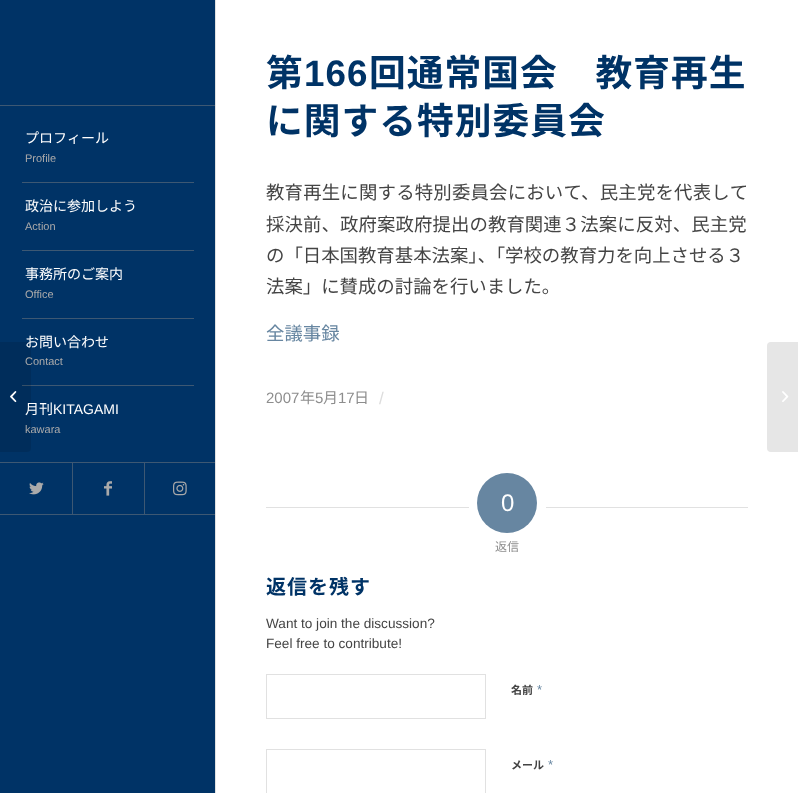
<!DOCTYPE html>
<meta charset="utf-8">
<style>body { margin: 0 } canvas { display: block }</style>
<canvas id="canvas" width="798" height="793"></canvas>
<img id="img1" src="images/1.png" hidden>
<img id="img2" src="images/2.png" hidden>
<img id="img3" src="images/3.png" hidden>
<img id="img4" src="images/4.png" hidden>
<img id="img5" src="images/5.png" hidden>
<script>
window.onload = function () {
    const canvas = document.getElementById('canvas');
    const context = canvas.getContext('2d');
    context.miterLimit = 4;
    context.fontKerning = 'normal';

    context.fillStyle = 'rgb(0, 51, 102)';
    context.fillRect(0, 0, 798, 793);
    context.fillStyle = 'rgb(61, 88, 115)';
    context.fillRect(22, 385, 172, 1);
    context.fillStyle = 'rgba(0, 0, 0, 0.1)';
    context.beginPath();
    context.roundRect(0, 342, 31, 110, [0, 4, 4, 0]);
    context.fill();
    context.drawImage(document.getElementById('img1'), 10, 391, 7, 12);
    context.fillStyle = 'rgb(61, 88, 115)';
    context.fillRect(0, 514, 215, 1);
    context.fillRect(0, 105, 215, 1);
    context.fillRect(22, 182, 172, 1);
    context.fillRect(22, 250, 172, 1);
    context.fillRect(22, 318, 172, 1);
    context.fillRect(0, 462, 215, 1);
    context.drawImage(document.getElementById('img2'), 29, 482, 15, 13);
    context.fillRect(72, 463, 1, 51);
    context.drawImage(document.getElementById('img3'), 104, 481, 8, 15);
    context.fillRect(144, 463, 1, 51);
    context.drawImage(document.getElementById('img4'), 173, 481, 14, 15);
    context.fillStyle = 'rgb(255, 255, 255)';
    context.fillRect(216, 0, 582, 793);
    context.fillStyle = 'rgb(225, 225, 225)';
    context.fillRect(215, 0, 1, 793);
    context.fillRect(266, 507, 203, 1);
    context.fillStyle = 'rgb(103, 134, 161)';
    context.beginPath();
    context.arc(507, 503, 30, 0, 2 * Math.PI);
    context.fill();
    context.fillStyle = 'rgb(225, 225, 225)';
    context.fillRect(546, 507, 202, 1);
    context.strokeStyle = 'rgb(225, 225, 225)';
    context.strokeRect(266.5, 674.5, 219, 44);
    context.strokeRect(266.5, 749.5, 219, 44);
    context.fillStyle = 'rgb(230, 230, 230)';
    context.beginPath();
    context.roundRect(767, 342, 31, 110, [4, 0, 0, 4]);
    context.fill();
    context.drawImage(document.getElementById('img5'), 782, 391, 7, 11);
    context.font = '14px Noto Sans JP';
    context.fillStyle = 'rgb(255, 255, 255)';
    context.fillText('プロフィール', 25, 143);
    context.font = '11px Liberation Sans';
    context.fillStyle = 'rgb(170, 170, 170)';
    context.fillText('Profile', 25, 162);
    context.font = '14px Noto Sans JP';
    context.fillStyle = 'rgb(255, 255, 255)';
    context.fillText('政治に参加しよう', 25, 211);
    context.font = '11px Liberation Sans';
    context.fillStyle = 'rgb(170, 170, 170)';
    context.fillText('Action', 25, 230);
    context.font = '14px Noto Sans JP';
    context.fillStyle = 'rgb(255, 255, 255)';
    context.fillText('事務所のご案内', 25, 279);
    context.font = '11px Liberation Sans';
    context.fillStyle = 'rgb(170, 170, 170)';
    context.fillText('Office', 25, 298);
    context.font = '14px Noto Sans JP';
    context.fillStyle = 'rgb(255, 255, 255)';
    context.fillText('お問い合わせ', 25, 347);
    context.font = '11px Liberation Sans';
    context.fillStyle = 'rgb(170, 170, 170)';
    context.fillText('Contact', 25, 365);
    context.font = '14px Noto Sans JP';
    context.fillStyle = 'rgb(255, 255, 255)';
    context.fillText('月刊', 25, 414);
    context.font = '14px Liberation Sans';
    context.fillText('KITAGAMI', 53, 414);
    context.font = '11px Liberation Sans';
    context.fillStyle = 'rgb(170, 170, 170)';
    context.fillText('kawara', 25, 433);
    context.letterSpacing = '1px';
    context.font = 'bold 36.75px Noto Sans JP';
    context.fillStyle = 'rgb(0, 51, 102)';
    context.fillText('第', 266, 86);
    context.font = 'bold 36.75px Liberation Sans';
    context.fillText('166', 304, 86);
    context.font = 'bold 36.75px Noto Sans JP';
    context.fillText('回通常国会　教育再生', 369, 86);
    context.fillText('に関する特別委員会', 266, 134);
    context.letterSpacing = '0.2px';
    context.font = '18.4px Noto Sans JP';
    context.fillStyle = 'rgb(68, 68, 68)';
    context.fillText('教育再生に関する特別委員会において、民主党を代表して', 266, 199);
    context.letterSpacing = '0.1px';
    context.fillText('採決前、政府案政府提出の教育関連３法案に反対、民主党', 266, 231);
    context.letterSpacing = '0px';
    context.fillText('の「日本国教育基本法案」、「学校の教育力を向上させる３', 266, 262);
    context.fillText('法案」に賛成の討論を行いました。', 266, 293);
    context.fillStyle = 'rgb(103, 134, 161)';
    context.fillText('全議事録', 266, 340);
    context.font = '15px Liberation Sans';
    context.fillStyle = 'rgb(141, 141, 141)';
    context.fillText('2007', 266, 403);
    context.font = '15px Noto Sans JP';
    context.fillText('年', 300, 403);
    context.font = '15px Liberation Sans';
    context.fillText('5', 315, 403);
    context.font = '15px Noto Sans JP';
    context.fillText('月', 323, 403);
    context.font = '15px Liberation Sans';
    context.fillText('17', 338, 403);
    context.font = '15px Noto Sans JP';
    context.fillText('日', 354, 403);
    context.font = '17px Liberation Sans';
    context.fillStyle = 'rgb(221, 221, 221)';
    context.fillText('/', 379, 404);
    context.font = '24px Liberation Sans';
    context.fillStyle = 'rgb(255, 255, 255)';
    context.fillText('0', 501, 511);
    context.font = '12px Noto Sans JP';
    context.fillStyle = 'rgb(141, 141, 141)';
    context.fillText('返信', 495, 551);
    context.letterSpacing = '1px';
    context.font = 'bold 20px Noto Sans JP';
    context.fillStyle = 'rgb(0, 51, 102)';
    context.fillText('返信を残す', 266, 594);
    context.letterSpacing = '0px';
    context.font = '13.6px Liberation Sans';
    context.fillStyle = 'rgb(68, 68, 68)';
    context.fillText('Want to join the discussion?', 266, 628);
    context.fillText('Feel free to contribute!', 266, 648);
    context.font = 'bold 11px Noto Sans JP';
    context.fillText('名前', 511, 694);
    context.font = '13px Liberation Sans';
    context.fillStyle = 'rgb(103, 134, 161)';
    context.fillText('*', 537, 694);
    context.font = 'bold 11px Noto Sans JP';
    context.fillStyle = 'rgb(68, 68, 68)';
    context.fillText('メール', 511, 769);
    context.font = '13px Liberation Sans';
    context.fillStyle = 'rgb(103, 134, 161)';
    context.fillText('*', 548, 769);
};
</script>
